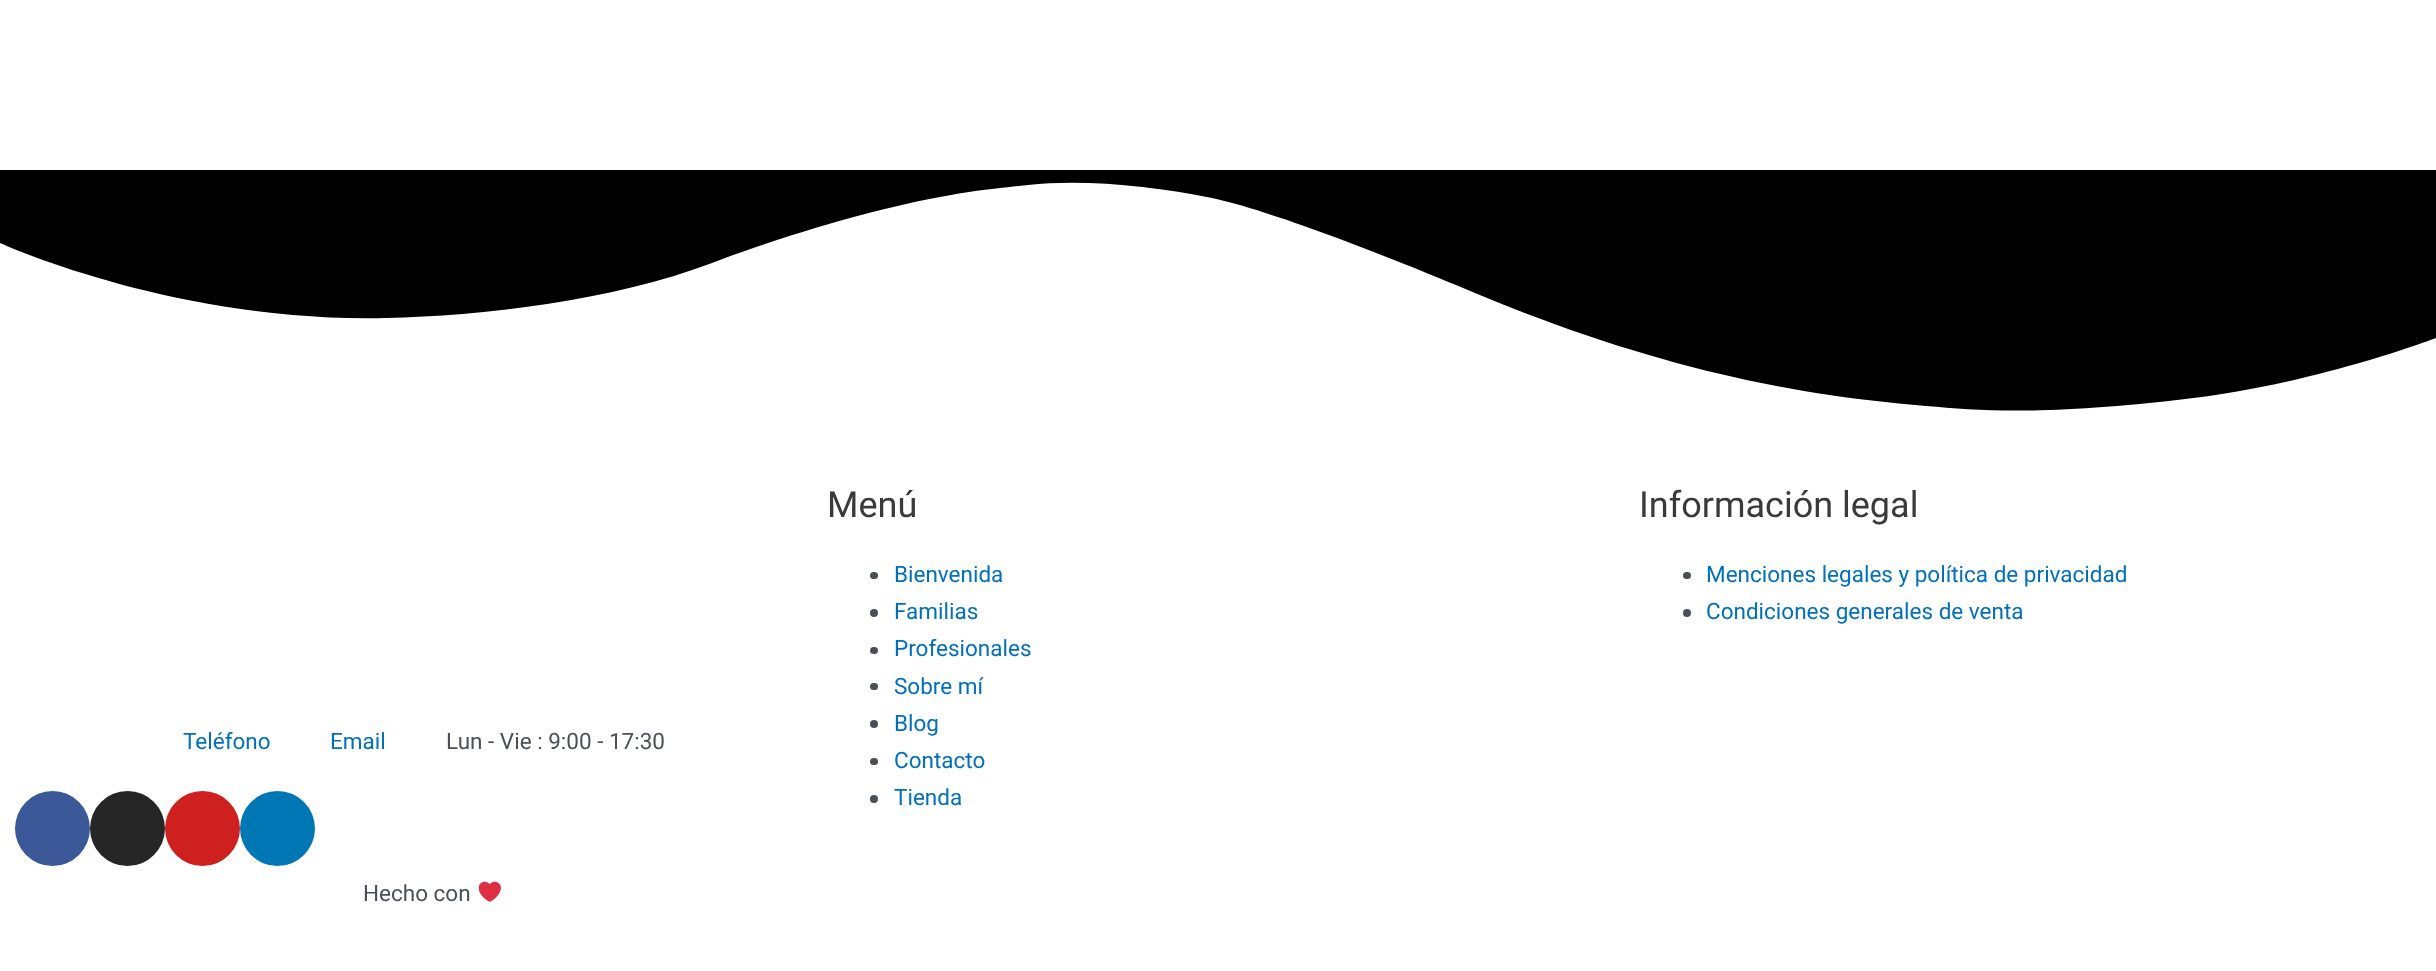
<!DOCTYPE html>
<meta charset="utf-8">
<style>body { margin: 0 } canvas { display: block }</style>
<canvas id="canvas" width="2436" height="971"></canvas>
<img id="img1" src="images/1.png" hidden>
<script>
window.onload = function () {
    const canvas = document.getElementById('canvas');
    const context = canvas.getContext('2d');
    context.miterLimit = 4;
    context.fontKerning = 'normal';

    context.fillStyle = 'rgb(255, 255, 255)';
    context.fillRect(0, 0, 2436, 971);
    context.fillStyle = 'rgb(0, 0, 0)';
    context.beginPath();
    context.moveTo(1028, 185);
    context.bezierCurveTo(1083, 179, 1153, 186, 1212, 198);
    context.bezierCurveTo(1269, 210, 1384, 255, 1456, 285);
    context.bezierCurveTo(1641, 364, 1782, 394, 1926, 406);
    context.bezierCurveTo(1983, 411, 2044, 415, 2177, 400);
    context.bezierCurveTo(2311, 386, 2436, 338, 2436, 338);
    context.lineTo(2436, 170);
    context.lineTo(0, 170);
    context.lineTo(0, 243);
    context.bezierCurveTo(0, 243, 175, 323, 386, 318);
    context.bezierCurveTo(481, 316, 612, 301, 712, 263);
    context.bezierCurveTo(764, 243, 839, 219, 906, 204);
    context.bezierCurveTo(973, 189, 1003, 188, 1028, 185);
    context.closePath();
    context.fill();
    context.fillStyle = 'rgb(59, 89, 152)';
    context.beginPath();
    context.arc(52.5, 828.5, 37.5, 0, 2 * Math.PI);
    context.fill();
    context.fillStyle = 'rgb(38, 38, 38)';
    context.beginPath();
    context.arc(127.5, 828.5, 37.5, 0, 2 * Math.PI);
    context.fill();
    context.fillStyle = 'rgb(205, 32, 31)';
    context.beginPath();
    context.arc(202.5, 828.5, 37.5, 0, 2 * Math.PI);
    context.fill();
    context.fillStyle = 'rgb(0, 119, 181)';
    context.beginPath();
    context.arc(277.5, 828.5, 37.5, 0, 2 * Math.PI);
    context.fill();
    context.fillStyle = 'rgb(75, 79, 88)';
    context.beginPath();
    context.roundRect(870, 572, 8, 7, 3.5);
    context.fill();
    context.beginPath();
    context.arc(874, 613, 4, 0, 2 * Math.PI);
    context.fill();
    context.beginPath();
    context.roundRect(870, 647, 8, 7, 3.5);
    context.fill();
    context.beginPath();
    context.roundRect(870, 683, 8, 7, 3.5);
    context.fill();
    context.beginPath();
    context.arc(874, 724, 4, 0, 2 * Math.PI);
    context.fill();
    context.beginPath();
    context.roundRect(870, 758, 8, 7, 3.5);
    context.fill();
    context.beginPath();
    context.arc(874, 799, 4, 0, 2 * Math.PI);
    context.fill();
    context.beginPath();
    context.roundRect(1683, 572, 8, 7, 3.5);
    context.fill();
    context.beginPath();
    context.arc(1687, 613, 4, 0, 2 * Math.PI);
    context.fill();
    context.drawImage(document.getElementById('img1'), 479, 881, 22, 21);
    context.font = '22.5px Roboto';
    context.fillStyle = 'rgb(1, 112, 185)';
    context.fillText('Teléfono', 183, 749);
    context.fillText('Email', 330, 749);
    context.fillStyle = 'rgb(75, 79, 88)';
    context.fillText('Lun - Vie : 9:00 - 17:30', 446, 749);
    context.font = '36px Roboto';
    context.fillStyle = 'rgb(58, 58, 58)';
    context.fillText('Menú', 827, 517);
    context.font = '22.5px Roboto';
    context.fillStyle = 'rgb(1, 112, 185)';
    context.fillText('Bienvenida', 894, 582);
    context.fillText('Familias', 894, 619);
    context.fillText('Profesionales', 894, 656);
    context.fillText('Sobre mí', 894, 694);
    context.fillText('Blog', 894, 731);
    context.fillText('Contacto', 894, 768);
    context.fillText('Tienda', 894, 805);
    context.font = '36px Roboto';
    context.fillStyle = 'rgb(58, 58, 58)';
    context.fillText('Información legal', 1639, 517);
    context.font = '22.5px Roboto';
    context.fillStyle = 'rgb(1, 112, 185)';
    context.fillText('Menciones legales y política de privacidad', 1706, 582);
    context.fillText('Condiciones generales de venta', 1706, 619);
    context.fillStyle = 'rgb(75, 79, 88)';
    context.fillText('Hecho con', 363, 901);
};
</script>
